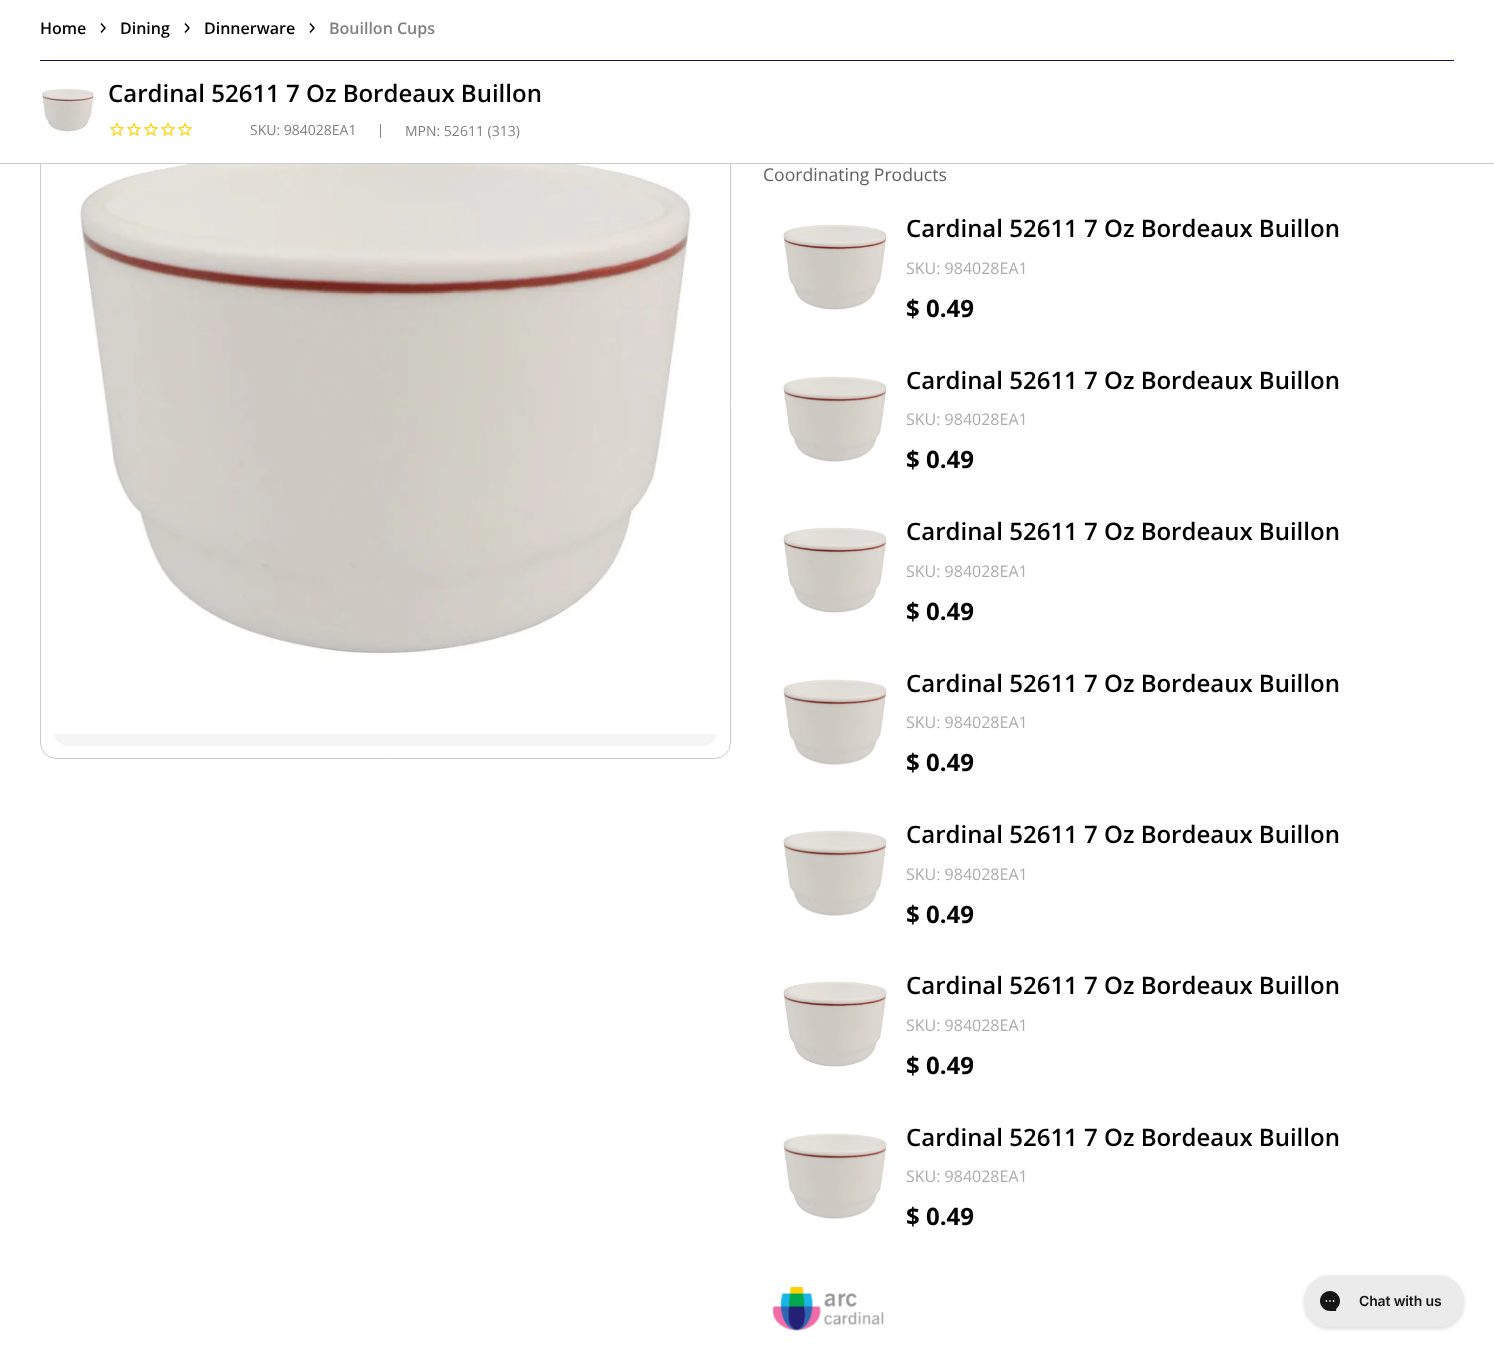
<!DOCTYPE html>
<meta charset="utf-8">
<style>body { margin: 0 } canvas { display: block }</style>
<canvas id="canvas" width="1494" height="1364"></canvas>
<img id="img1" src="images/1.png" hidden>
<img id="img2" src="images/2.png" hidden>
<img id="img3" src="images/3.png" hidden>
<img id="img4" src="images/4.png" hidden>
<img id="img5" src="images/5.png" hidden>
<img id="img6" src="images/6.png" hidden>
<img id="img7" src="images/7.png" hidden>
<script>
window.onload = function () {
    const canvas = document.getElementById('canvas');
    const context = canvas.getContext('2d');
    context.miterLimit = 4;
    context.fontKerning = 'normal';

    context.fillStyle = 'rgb(255, 255, 255)';
    context.fillRect(0, 0, 1494, 1364);
    context.beginPath();
    context.roundRect(40.5, 44.5, 690, 714, 15.5);
    context.strokeStyle = 'rgb(204, 204, 204)';
    context.stroke();
    context.fillStyle = 'rgb(245, 245, 245)';
    context.beginPath();
    context.roundRect(53, 57, 665, 689, 16);
    context.fill();
    context.fillStyle = 'rgb(255, 255, 255)';
    context.fillRect(40, 44, 691, 119);
    context.fillStyle = 'rgb(204, 204, 204)';
    context.fillRect(0, 163, 1494, 1);
    context.fillStyle = 'rgb(22, 20, 95)';
    context.fillRect(40, 60, 1414, 1);
    context.beginPath();
    context.moveTo(101.5, 32);
    context.lineTo(105, 28);
    context.lineTo(101.5, 24);
    context.strokeStyle = 'rgb(0, 0, 0)';
    context.lineWidth = 1.5;
    context.lineCap = 'square';
    context.lineJoin = 'round';
    context.stroke();
    context.beginPath();
    context.moveTo(185.5, 32);
    context.lineTo(189, 28);
    context.lineTo(185.5, 24);
    context.stroke();
    context.beginPath();
    context.moveTo(310.5, 32);
    context.lineTo(314, 28);
    context.lineTo(310.5, 24);
    context.stroke();
    context.drawImage(document.getElementById('img1'), 40, 88, 55, 46);
    context.drawImage(document.getElementById('img2'), 109, 122, 16, 15);
    context.drawImage(document.getElementById('img2'), 126, 122, 16, 15);
    context.drawImage(document.getElementById('img2'), 143, 122, 16, 15);
    context.drawImage(document.getElementById('img2'), 160, 122, 16, 15);
    context.drawImage(document.getElementById('img2'), 177, 122, 16, 15);
    context.fillStyle = 'rgb(128, 128, 128)';
    context.fillRect(380, 124, 1, 14);
    context.drawImage(document.getElementById('img3'), 53, 164, 665, 570);
    context.drawImage(document.getElementById('img4'), 779, 211, 112, 112);
    context.drawImage(document.getElementById('img5'), 779, 363, 112, 112);
    context.drawImage(document.getElementById('img4'), 779, 514, 112, 112);
    context.drawImage(document.getElementById('img5'), 779, 666, 112, 112);
    context.drawImage(document.getElementById('img5'), 779, 817, 112, 112);
    context.drawImage(document.getElementById('img4'), 779, 968, 112, 112);
    context.drawImage(document.getElementById('img5'), 779, 1120, 112, 112);
    context.drawImage(document.getElementById('img6'), 772, 1287, 112, 44);
    context.drawImage(document.getElementById('img7'), 1302, 1275, 164, 56);
    context.font = '600 16px Open Sans';
    context.fillStyle = 'rgb(0, 0, 0)';
    context.fillText('Home', 40, 34);
    context.fillText('Dining', 120, 34);
    context.fillText('Dinnerware', 204, 34);
    context.fillStyle = 'rgb(128, 128, 128)';
    context.fillText('Bouillon Cups', 329, 34);
    context.font = '600 24px Open Sans';
    context.fillStyle = 'rgb(0, 0, 0)';
    context.fillText('Cardinal 52611 7 Oz Bordeaux Buillon', 108, 102);
    context.font = '14px Open Sans';
    context.fillStyle = 'rgb(128, 128, 128)';
    context.fillText('SKU: 984028EA1', 250, 135);
    context.fillText('MPN: 52611 (313)', 405, 136);
    context.font = '17.6px Open Sans';
    context.fillStyle = 'rgb(96, 96, 96)';
    context.fillText('Coordinating Products', 763, 181);
    context.font = '600 24px Open Sans';
    context.fillStyle = 'rgb(0, 0, 0)';
    context.fillText('Cardinal 52611 7 Oz Bordeaux Buillon', 906, 237);
    context.font = '16px Open Sans';
    context.fillStyle = 'rgb(172, 172, 172)';
    context.fillText('SKU: 984028EA1', 906, 274);
    context.font = 'bold 24px Open Sans';
    context.fillStyle = 'rgb(0, 0, 0)';
    context.fillText('$ 0.49', 906, 317);
    context.font = '600 24px Open Sans';
    context.fillText('Cardinal 52611 7 Oz Bordeaux Buillon', 906, 389);
    context.font = '16px Open Sans';
    context.fillStyle = 'rgb(172, 172, 172)';
    context.fillText('SKU: 984028EA1', 906, 425);
    context.font = 'bold 24px Open Sans';
    context.fillStyle = 'rgb(0, 0, 0)';
    context.fillText('$ 0.49', 906, 468);
    context.font = '600 24px Open Sans';
    context.fillText('Cardinal 52611 7 Oz Bordeaux Buillon', 906, 540);
    context.font = '16px Open Sans';
    context.fillStyle = 'rgb(172, 172, 172)';
    context.fillText('SKU: 984028EA1', 906, 577);
    context.font = 'bold 24px Open Sans';
    context.fillStyle = 'rgb(0, 0, 0)';
    context.fillText('$ 0.49', 906, 620);
    context.font = '600 24px Open Sans';
    context.fillText('Cardinal 52611 7 Oz Bordeaux Buillon', 906, 692);
    context.font = '16px Open Sans';
    context.fillStyle = 'rgb(172, 172, 172)';
    context.fillText('SKU: 984028EA1', 906, 728);
    context.font = 'bold 24px Open Sans';
    context.fillStyle = 'rgb(0, 0, 0)';
    context.fillText('$ 0.49', 906, 771);
    context.font = '600 24px Open Sans';
    context.fillText('Cardinal 52611 7 Oz Bordeaux Buillon', 906, 843);
    context.font = '16px Open Sans';
    context.fillStyle = 'rgb(172, 172, 172)';
    context.fillText('SKU: 984028EA1', 906, 880);
    context.font = 'bold 24px Open Sans';
    context.fillStyle = 'rgb(0, 0, 0)';
    context.fillText('$ 0.49', 906, 923);
    context.font = '600 24px Open Sans';
    context.fillText('Cardinal 52611 7 Oz Bordeaux Buillon', 906, 994);
    context.font = '16px Open Sans';
    context.fillStyle = 'rgb(172, 172, 172)';
    context.fillText('SKU: 984028EA1', 906, 1031);
    context.font = 'bold 24px Open Sans';
    context.fillStyle = 'rgb(0, 0, 0)';
    context.fillText('$ 0.49', 906, 1074);
    context.font = '600 24px Open Sans';
    context.fillText('Cardinal 52611 7 Oz Bordeaux Buillon', 906, 1146);
    context.font = '16px Open Sans';
    context.fillStyle = 'rgb(172, 172, 172)';
    context.fillText('SKU: 984028EA1', 906, 1182);
    context.font = 'bold 24px Open Sans';
    context.fillStyle = 'rgb(0, 0, 0)';
    context.fillText('$ 0.49', 906, 1225);
};
</script>
